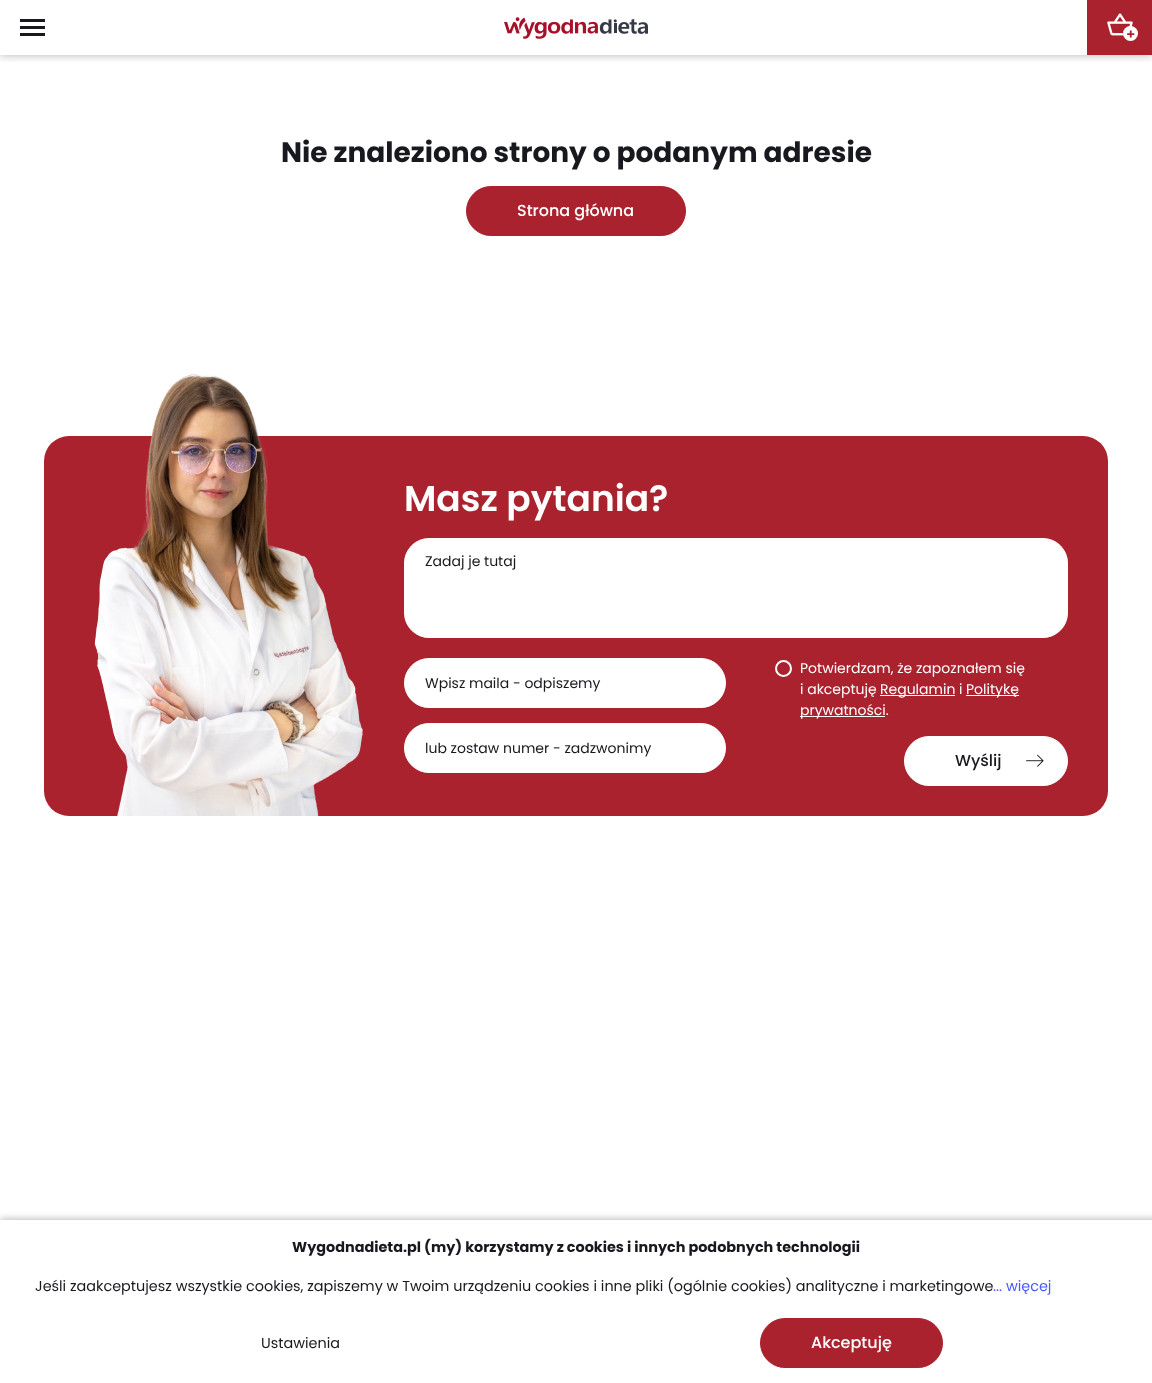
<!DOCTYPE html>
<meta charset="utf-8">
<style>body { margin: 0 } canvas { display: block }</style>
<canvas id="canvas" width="1152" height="1383"></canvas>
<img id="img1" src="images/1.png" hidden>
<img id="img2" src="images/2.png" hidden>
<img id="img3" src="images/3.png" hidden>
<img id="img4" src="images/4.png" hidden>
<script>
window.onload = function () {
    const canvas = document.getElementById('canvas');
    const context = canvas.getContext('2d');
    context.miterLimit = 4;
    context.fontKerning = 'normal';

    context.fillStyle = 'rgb(255, 255, 255)';
    context.fillRect(0, 0, 1152, 1383);
    context.save();
    context.beginPath();
    context.rect(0, 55, 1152, 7);
    context.clip();
    context.fillStyle = 'rgba(1, 2, 4, 0.3)';
    context.filter = 'blur(5px)';
    context.beginPath();
    context.rect(0, 0, 1152, 55);
    context.fill();
    context.filter = 'none';
    context.restore();
    context.fillStyle = 'rgb(24, 25, 31)';
    context.fillRect(20, 19, 25, 3);
    context.fillRect(20, 26, 25, 3);
    context.fillRect(20, 33, 25, 3);
    context.drawImage(document.getElementById('img1'), 504, 17, 144, 22);
    context.fillStyle = 'rgb(170, 34, 46)';
    context.fillRect(1087, 0, 65, 55);
    context.drawImage(document.getElementById('img2'), 1107, 13, 26, 23);
    context.fillStyle = 'rgb(255, 255, 255)';
    context.beginPath();
    context.arc(1130.5, 33.5, 7.5, 0, 2 * Math.PI);
    context.fill();
    context.fillStyle = 'rgb(170, 34, 46)';
    context.beginPath();
    context.roundRect(466.5, 186.5, 219, 49, 24.5);
    context.fill();
    context.strokeStyle = 'rgb(170, 34, 46)';
    context.stroke();
    context.beginPath();
    context.roundRect(44, 436, 1064, 380, 25);
    context.fill();
    context.drawImage(document.getElementById('img3'), 94, 374, 269, 442);
    context.fillStyle = 'rgb(255, 255, 255)';
    context.beginPath();
    context.roundRect(404.5, 538.5, 663, 99, 24.5);
    context.fill();
    context.strokeStyle = 'rgb(255, 255, 255)';
    context.stroke();
    context.beginPath();
    context.roundRect(404.5, 658.5, 321, 49, 24.5);
    context.fill();
    context.stroke();
    context.beginPath();
    context.roundRect(404.5, 723.5, 321, 49, 24.5);
    context.fill();
    context.stroke();
    context.beginPath();
    context.arc(783.5, 668.5, 7.5, 0, 2 * Math.PI);
    context.lineWidth = 2;
    context.stroke();
    context.fillRect(880, 695, 75, 1);
    context.fillRect(966, 695, 53, 1);
    context.fillRect(800, 716, 85, 1);
    context.beginPath();
    context.roundRect(904.5, 736.5, 163, 49, 24.5);
    context.fill();
    context.lineWidth = 1;
    context.stroke();
    context.drawImage(document.getElementById('img4'), 1026, 754, 18, 13);
    context.fillStyle = 'rgb(170, 170, 170)';
    context.filter = 'blur(4px)';
    context.beginPath();
    context.rect(0, 1220, 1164, 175);
    context.fill();
    context.filter = 'none';
    context.fillStyle = 'rgb(255, 255, 255)';
    context.fillRect(0, 1220, 1152, 163);
    context.fillStyle = 'rgb(170, 34, 46)';
    context.beginPath();
    context.roundRect(760.5, 1318.5, 182, 49, 24.5);
    context.fill();
    context.strokeStyle = 'rgb(170, 34, 46)';
    context.stroke();
    context.font = '600 14px Poppins';
    context.fillText('+', 1126, 39);
    context.font = 'bold 28px Poppins';
    context.fillStyle = 'rgb(24, 25, 31)';
    context.fillText('Nie znaleziono strony o podanym adresie', 281, 162);
    context.font = '500 16px Poppins';
    context.fillStyle = 'rgb(255, 255, 255)';
    context.fillText('Strona główna', 517, 216);
    context.font = '600 36px Poppins';
    context.fillText('Masz pytania?', 404, 511);
    context.font = '14px Poppins';
    context.fillStyle = 'rgb(24, 25, 31)';
    context.fillText('Zadaj je tutaj', 425, 566);
    context.fillText('Wpisz maila - odpiszemy', 425, 688);
    context.fillText('lub zostaw numer - zadzwonimy', 425, 753);
    context.fillStyle = 'rgb(255, 255, 255)';
    context.fillText('Potwierdzam, że zapoznałem się', 800, 673);
    context.fillText('i akceptuję', 800, 694);
    context.fillText('Regulamin i', 880, 694);
    context.fillText('Politykę', 966, 694);
    context.fillText('prywatności.', 800, 715);
    context.font = '500 16px Poppins';
    context.fillStyle = 'rgb(24, 25, 31)';
    context.fillText('Wyślij', 955, 766);
    context.font = 'bold 14.4px Poppins';
    context.fillText('Wygodnadieta.pl (my) korzystamy z cookies i innych podobnych technologii', 292, 1252);
    context.font = '14.4px Poppins';
    context.fillText('Jeśli zaakceptujesz wszystkie cookies, zapiszemy w Twoim urządzeniu cookies i inne pliki (ogólnie cookies) analityczne i marketingowe', 35, 1291);
    context.fillStyle = 'rgb(72, 89, 255)';
    context.fillText('... więcej', 993, 1291);
    context.fillStyle = 'rgb(24, 25, 31)';
    context.fillText('Ustawienia', 261, 1348);
    context.font = '500 16px Poppins';
    context.fillStyle = 'rgb(255, 255, 255)';
    context.fillText('Akceptuję', 811, 1348);
};
</script>
